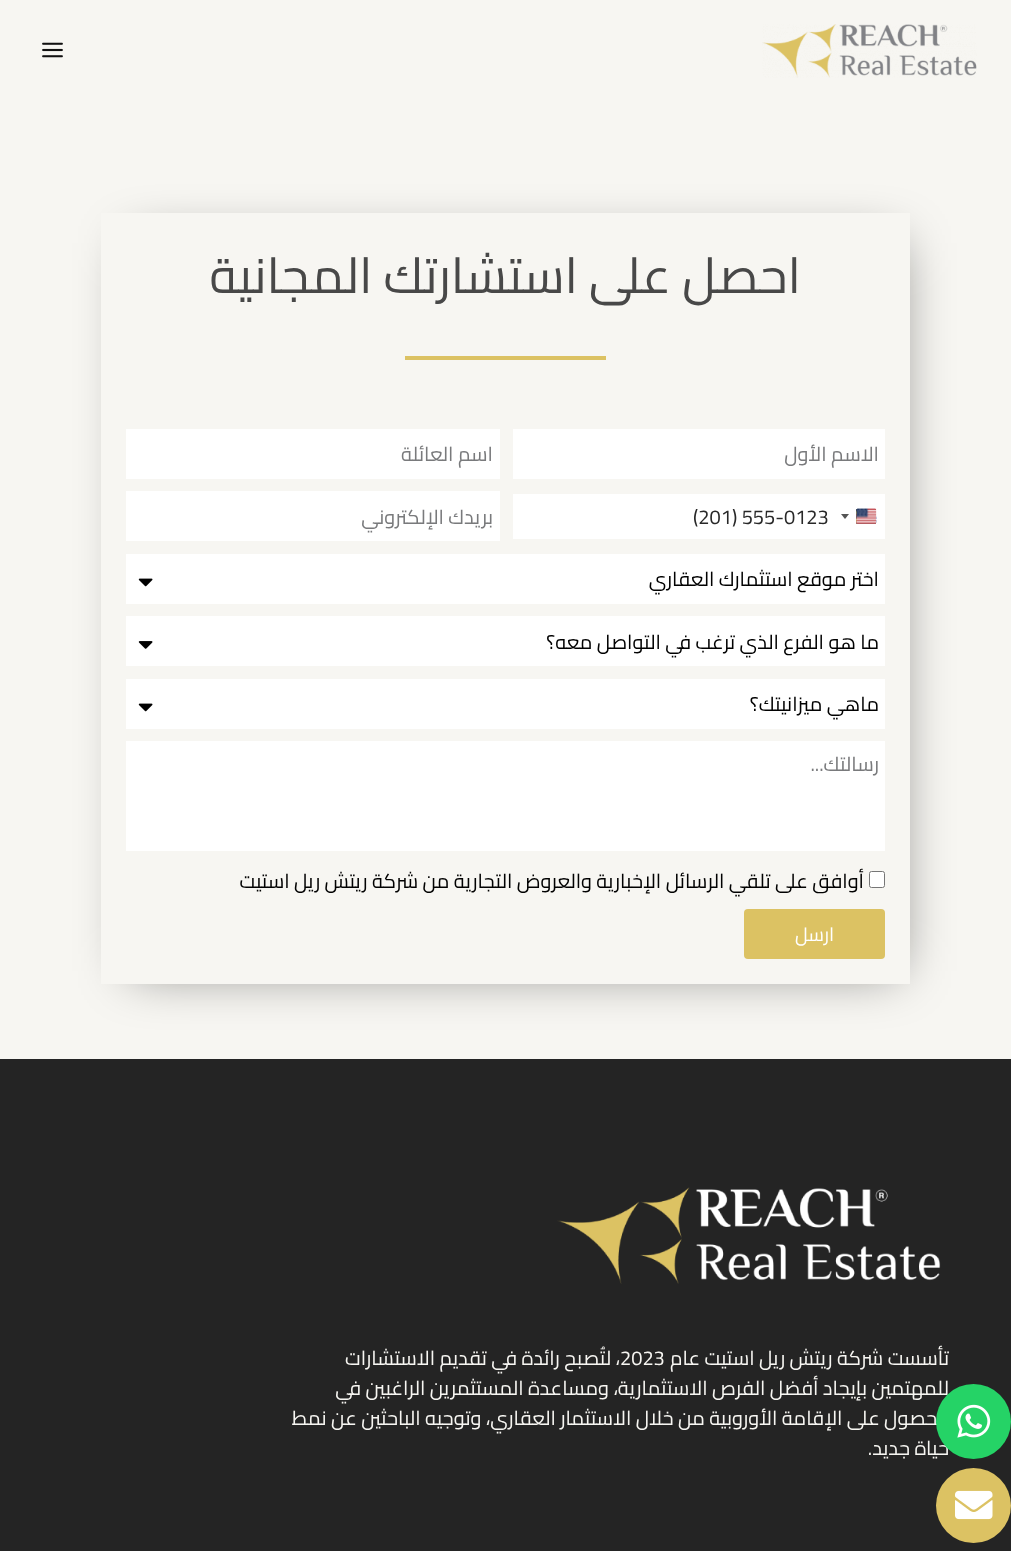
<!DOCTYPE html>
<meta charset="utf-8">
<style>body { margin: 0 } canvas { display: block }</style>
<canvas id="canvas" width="1011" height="1551"></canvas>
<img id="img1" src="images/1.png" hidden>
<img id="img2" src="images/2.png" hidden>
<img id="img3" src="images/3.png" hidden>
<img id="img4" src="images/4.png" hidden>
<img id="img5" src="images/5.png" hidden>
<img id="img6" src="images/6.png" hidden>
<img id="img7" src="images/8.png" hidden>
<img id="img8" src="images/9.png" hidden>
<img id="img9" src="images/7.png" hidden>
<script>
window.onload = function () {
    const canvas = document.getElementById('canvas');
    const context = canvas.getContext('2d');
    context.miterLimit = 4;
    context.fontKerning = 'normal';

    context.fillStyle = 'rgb(247, 246, 242)';
    context.fillRect(0, 0, 1011, 1551);
    context.drawImage(document.getElementById('img1'), 762, 24, 215, 54);
    context.drawImage(document.getElementById('img2'), 42, 42, 21, 16);
    context.save();
    context.beginPath();
    context.moveTo(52, 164);
    context.lineTo(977, 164);
    context.lineTo(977, 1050);
    context.lineTo(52, 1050);
    context.closePath();
    context.moveTo(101, 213);
    context.lineTo(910, 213);
    context.lineTo(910, 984);
    context.lineTo(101, 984);
    context.closePath();
    context.clip('evenodd');
    context.fillStyle = 'rgba(0, 0, 0, 0.5)';
    context.filter = 'blur(26px)';
    context.beginPath();
    context.rect(131, 243, 767, 728);
    context.fill();
    context.filter = 'none';
    context.restore();
    context.fillStyle = 'rgb(220, 194, 99)';
    context.fillRect(405, 356, 201, 4);
    context.fillStyle = 'rgb(255, 255, 255)';
    context.fillRect(513, 429, 372, 50);
    context.fillRect(126, 429, 374, 50);
    context.fillRect(513, 494, 372, 45);
    context.fillStyle = 'rgb(136, 136, 136)';
    context.filter = 'blur(0.5px)';
    context.beginPath();
    context.roundRect(856, 509, 20, 15, 1);
    context.fill();
    context.filter = 'none';
    context.drawImage(document.getElementById('img3'), 856, 508, 21, 16);
    context.filter = 'blur(0.5px)';
    context.beginPath();
    context.roundRect(856, 509, 20, 15, 1);
    context.fill();
    context.filter = 'none';
    context.drawImage(document.getElementById('img4'), 856, 508, 21, 16);
    context.fillStyle = 'rgb(85, 85, 85)';
    context.beginPath();
    context.moveTo(841, 514);
    context.lineTo(849, 514);
    context.lineTo(845, 519);
    context.closePath();
    context.fill();
    context.fillStyle = 'rgb(255, 255, 255)';
    context.fillRect(126, 491, 374, 50);
    context.fillRect(126, 554, 759, 50);
    context.drawImage(document.getElementById('img5'), 138, 578, 15, 9);
    context.fillRect(126, 616, 759, 50);
    context.drawImage(document.getElementById('img6'), 138, 641, 15, 8);
    context.fillRect(126, 679, 759, 50);
    context.drawImage(document.getElementById('img5'), 138, 703, 15, 9);
    context.fillRect(126, 741, 759, 110);
    context.beginPath();
    context.roundRect(869.5, 871.5, 15, 16, 2);
    context.fill();
    context.strokeStyle = 'rgb(118, 118, 118)';
    context.stroke();
    context.fillStyle = 'rgb(220, 194, 99)';
    context.beginPath();
    context.roundRect(744, 909, 141, 50, 4);
    context.fill();
    context.fillStyle = 'rgb(36, 36, 36)';
    context.fillRect(0, 1059, 1011, 492);
    context.fillStyle = 'rgb(220, 194, 99)';
    context.beginPath();
    context.arc(973.5, 1505.5, 37.5, 0, 2 * Math.PI);
    context.fill();
    context.drawImage(document.getElementById('img7'), 955, 1490, 38, 30);
    context.drawImage(document.getElementById('img8'), 557, 1187, 384, 97);
    context.direction = 'rtl';
    context.font = '50px Cairo';
    context.fillStyle = 'rgb(72, 72, 72)';
    context.fillText('احصل على استشارتك المجانية', 801, 293);
    context.font = '20px Cairo';
    context.fillStyle = 'rgb(121, 122, 124)';
    context.fillText('الاسم الأول', 879, 461);
    context.fillText('اسم العائلة', 493, 461);
    context.direction = 'ltr';
    context.fillStyle = 'rgb(40, 40, 40)';
    context.fillText('(201) 555-0123', 693, 524);
    context.direction = 'rtl';
    context.fillStyle = 'rgb(121, 122, 124)';
    context.fillText('بريدك الإلكتروني', 493, 524);
    context.fillStyle = 'rgb(1, 1, 1)';
    context.fillText('اختر موقع استثمارك العقاري', 879, 586);
    context.fillText('ما هو الفرع الذي ترغب في التواصل معه؟', 879, 649);
    context.fillText('ماهي ميزانيتك؟', 879, 711);
    context.fillStyle = 'rgb(121, 122, 124)';
    context.fillText('رسالتك...', 879, 771);
    context.fillStyle = 'rgb(1, 1, 1)';
    context.fillText('أوافق على تلقي الرسائل الإخبارية والعروض التجارية من شركة ريتش ريل استيت', 864, 888);
    context.font = '19px Cairo';
    context.fillStyle = 'rgb(255, 255, 255)';
    context.fillText('ارسل', 834, 941);
    context.font = '20px Cairo';
    context.fillStyle = 'rgb(247, 246, 242)';
    context.fillText('تأسست شركة ريتش ريل استيت عام', 949, 1365);
    context.direction = 'ltr';
    context.fillText('2023', 620, 1365);
    context.direction = 'rtl';
    context.fillText('، لتُصبح رائدة في تقديم الاستشارات', 620, 1365);
    context.fillText('للمهتمين بإيجاد أفضل الفرص الاستثمارية، ومساعدة المستثمرين الراغبين في', 949, 1395);
    context.fillText('الحصول على الإقامة الأوروبية من خلال الاستثمار العقاري، وتوجيه الباحثين عن نمط', 949, 1425);
    context.fillText('حياة جديد.', 949, 1455);
    context.fillStyle = 'rgb(37, 211, 102)';
    context.beginPath();
    context.arc(973.5, 1421.5, 37.5, 0, 2 * Math.PI);
    context.fill();
    context.drawImage(document.getElementById('img9'), 957, 1404, 34, 34);
};
</script>
